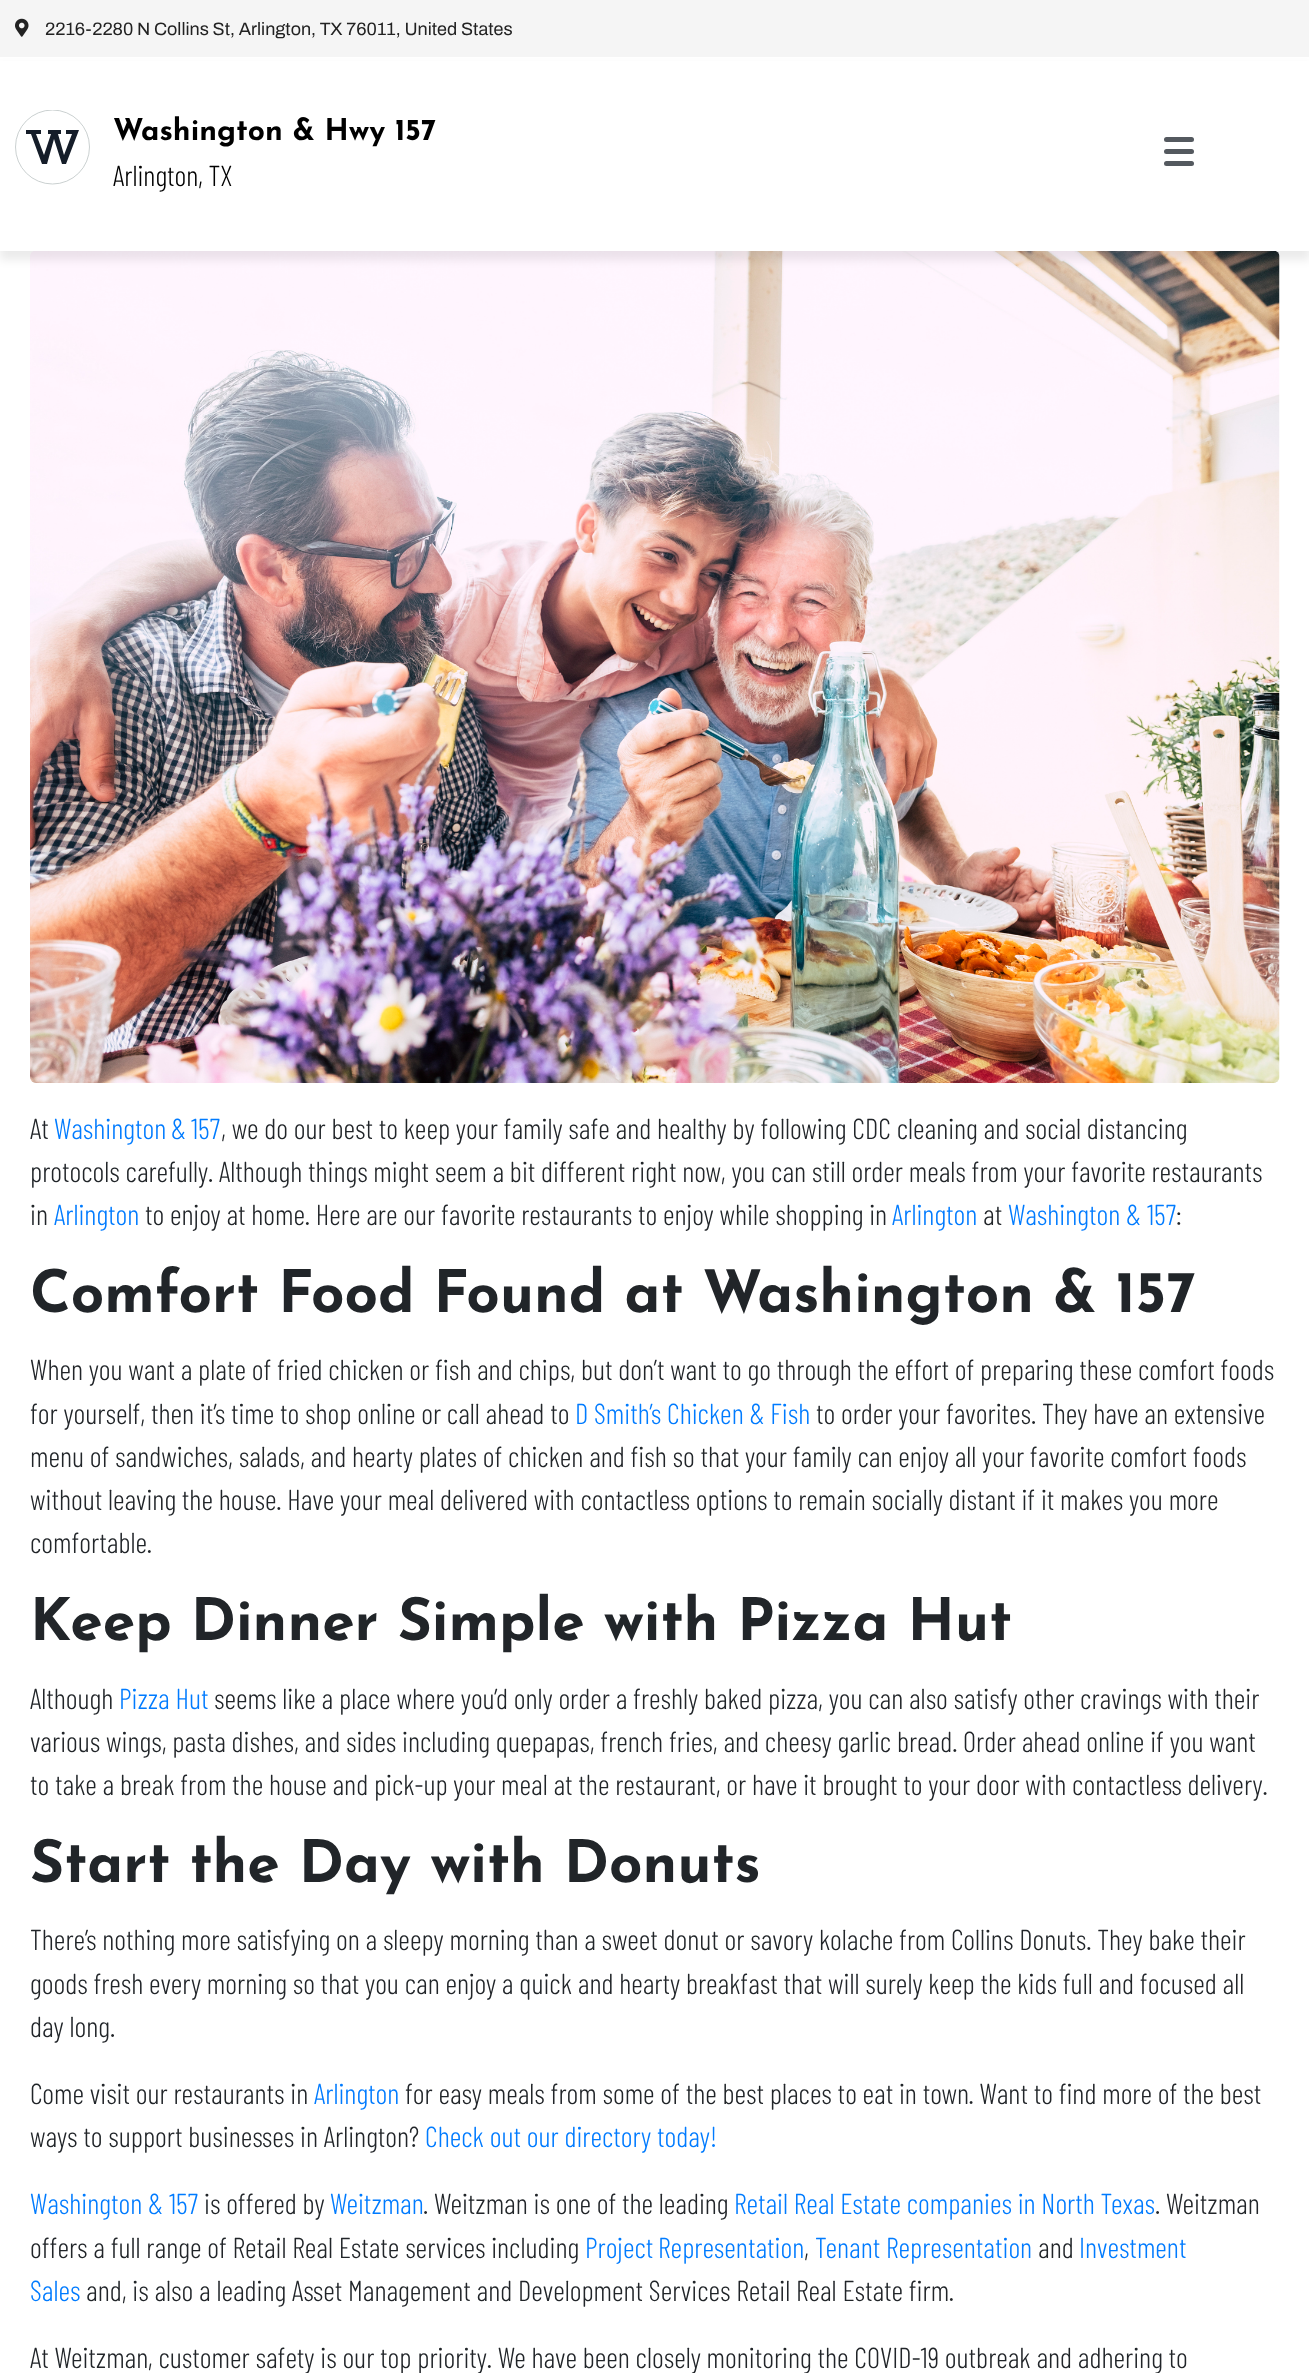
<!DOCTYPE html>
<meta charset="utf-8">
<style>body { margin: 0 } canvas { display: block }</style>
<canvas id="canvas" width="1309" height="2373"></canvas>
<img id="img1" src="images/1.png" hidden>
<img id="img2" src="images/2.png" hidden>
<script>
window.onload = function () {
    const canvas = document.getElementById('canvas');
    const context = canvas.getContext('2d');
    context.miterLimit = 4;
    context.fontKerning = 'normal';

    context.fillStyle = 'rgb(255, 255, 255)';
    context.fillRect(0, 0, 1309, 2373);
    context.fillStyle = 'rgb(245, 245, 245)';
    context.fillRect(0, 0, 1309, 57);
    context.drawImage(document.getElementById('img1'), 15, 18, 14, 19);
    context.drawImage(document.getElementById('img2'), 30, 251, 1250, 832);
    context.fillStyle = 'rgba(0, 0, 0, 0.08)';
    context.filter = 'blur(4.5px)';
    context.beginPath();
    context.rect(0, 66, 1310, 194);
    context.fill();
    context.filter = 'none';
    context.fillStyle = 'rgb(255, 255, 255)';
    context.fillRect(0, 61, 1309, 190);
    context.save();
    context.beginPath();
    context.rect(15, 110, 75, 75);
    context.clip();
    context.beginPath();
    context.arc(52.5, 147, 37, 0, 2 * Math.PI);
    context.strokeStyle = 'rgb(189, 196, 196)';
    context.lineWidth = 0.8;
    context.stroke();
    context.restore();
    context.fillStyle = 'rgb(21, 29, 41)';
    context.beginPath();
    context.moveTo(41, 130);
    context.lineTo(26, 130);
    context.lineTo(26, 134);
    context.lineTo(31, 134);
    context.lineTo(42, 164);
    context.lineTo(47, 164);
    context.lineTo(54, 139);
    context.lineTo(62, 164);
    context.lineTo(66, 164);
    context.lineTo(79, 130);
    context.lineTo(66, 130);
    context.lineTo(66, 134);
    context.lineTo(72, 134);
    context.lineTo(64, 155);
    context.lineTo(58, 134);
    context.lineTo(61, 134);
    context.lineTo(61, 130);
    context.lineTo(48, 130);
    context.lineTo(48, 134);
    context.lineTo(51, 134);
    context.lineTo(44, 155);
    context.lineTo(36, 134);
    context.lineTo(41, 134);
    context.closePath();
    context.fill();
    context.fillStyle = 'rgb(84, 89, 95)';
    context.beginPath();
    context.roundRect(1164, 149, 30, 5, 2.5);
    context.fill();
    context.beginPath();
    context.roundRect(1164, 137, 30, 5, 2.5);
    context.fill();
    context.beginPath();
    context.roundRect(1164, 161, 30, 5, 2.5);
    context.fill();
    context.font = '600 18px Archivo';
    context.fillStyle = 'rgb(34, 34, 34)';
    context.fillText('2216-2280 N Collins St, Arlington, TX 76011, United States', 45, 35);
    context.font = 'bold 30px Josefin Sans';
    context.fillStyle = 'rgb(0, 0, 0)';
    context.fillText('Washington & Hwy 157', 113, 140);
    context.font = '300 28.8px Barlow Condensed';
    context.fillText('Arlington, TX', 113, 186);
    context.fillStyle = 'rgb(33, 37, 41)';
    context.fillText('At', 30, 1139);
    context.wordSpacing = '-1px';
    context.fillStyle = 'rgb(0, 123, 255)';
    context.fillText('Washington & 157', 54, 1139);
    context.wordSpacing = '0px';
    context.fillStyle = 'rgb(33, 37, 41)';
    context.fillText(', we do our best to keep your family safe and healthy by following CDC cleaning and social distancing', 221, 1139);
    context.fillText('protocols carefully. Although things might seem a bit different right now, you can still order meals from your favorite restaurants', 30, 1182);
    context.fillText('in', 30, 1225);
    context.fillStyle = 'rgb(0, 123, 255)';
    context.fillText('Arlington', 54, 1225);
    context.fillStyle = 'rgb(33, 37, 41)';
    context.fillText('to enjoy at home. Here are our favorite restaurants to enjoy while shopping in', 145, 1225);
    context.fillStyle = 'rgb(0, 123, 255)';
    context.fillText('Arlington', 892, 1225);
    context.fillStyle = 'rgb(33, 37, 41)';
    context.fillText('at', 983, 1225);
    context.fillStyle = 'rgb(0, 123, 255)';
    context.fillText('Washington & 157', 1008, 1225);
    context.fillStyle = 'rgb(33, 37, 41)';
    context.fillText(':', 1176, 1225);
    context.font = 'bold 58.6px Josefin Sans';
    context.fillText('Comfort Food Found at Washington & 157', 30, 1312);
    context.font = '300 28.8px Barlow Condensed';
    context.fillText('When you want a plate of fried chicken or fish and chips, but don’t want to go through the effort of preparing these comfort foods', 30, 1380);
    context.fillText('for yourself, then it’s time to shop online or call ahead to', 30, 1424);
    context.fillStyle = 'rgb(0, 123, 255)';
    context.fillText('D Smith’s Chicken & Fish', 575, 1424);
    context.fillStyle = 'rgb(33, 37, 41)';
    context.fillText('to order your favorites. They have an extensive', 816, 1424);
    context.fillText('menu of sandwiches, salads, and hearty plates of chicken and fish so that your family can enjoy all your favorite comfort foods', 30, 1467);
    context.fillText('without leaving the house. Have your meal delivered with contactless options to remain socially distant if it makes you more', 30, 1510);
    context.fillText('comfortable.', 30, 1553);
    context.font = 'bold 58.6px Josefin Sans';
    context.fillText('Keep Dinner Simple with Pizza Hut', 30, 1640);
    context.font = '300 28.8px Barlow Condensed';
    context.fillText('Although', 30, 1709);
    context.fillStyle = 'rgb(0, 123, 255)';
    context.fillText('Pizza Hut', 119, 1709);
    context.fillStyle = 'rgb(33, 37, 41)';
    context.fillText('seems like a place where you’d only order a freshly baked pizza, you can also satisfy other cravings with their', 214, 1709);
    context.fillText('various wings, pasta dishes, and sides including quepapas, french fries, and cheesy garlic bread. Order ahead online if you want', 30, 1752);
    context.fillText('to take a break from the house and pick-up your meal at the restaurant, or have it brought to your door with contactless delivery.', 30, 1795);
    context.font = 'bold 58.6px Josefin Sans';
    context.fillText('Start the Day with Donuts', 30, 1882);
    context.font = '300 28.8px Barlow Condensed';
    context.fillText('There’s nothing more satisfying on a sleepy morning than a sweet donut or savory kolache from Collins Donuts. They bake their', 30, 1950);
    context.fillText('goods fresh every morning so that you can enjoy a quick and hearty breakfast that will surely keep the kids full and focused all', 30, 1994);
    context.fillText('day long.', 30, 2037);
    context.fillText('Come visit our restaurants in', 30, 2104);
    context.fillStyle = 'rgb(0, 123, 255)';
    context.fillText('Arlington', 314, 2104);
    context.fillStyle = 'rgb(33, 37, 41)';
    context.fillText('for easy meals from some of the best places to eat in town. Want to find more of the best', 405, 2104);
    context.fillText('ways to support businesses in Arlington?', 30, 2147);
    context.fillStyle = 'rgb(0, 123, 255)';
    context.fillText('Check out our directory today!', 425, 2147);
    context.fillText('Washington & 157', 30, 2214);
    context.fillStyle = 'rgb(33, 37, 41)';
    context.fillText('is offered by', 204, 2214);
    context.fillStyle = 'rgb(0, 123, 255)';
    context.fillText('Weitzman', 330, 2214);
    context.fillStyle = 'rgb(33, 37, 41)';
    context.fillText('. Weitzman is one of the leading', 423, 2214);
    context.fillStyle = 'rgb(0, 123, 255)';
    context.fillText('Retail Real Estate companies in North Texas', 734, 2214);
    context.fillStyle = 'rgb(33, 37, 41)';
    context.fillText('. Weitzman', 1155, 2214);
    context.fillText('offers a full range of Retail Real Estate services including', 30, 2258);
    context.wordSpacing = '-1px';
    context.fillStyle = 'rgb(0, 123, 255)';
    context.fillText('Project Representation', 585, 2258);
    context.wordSpacing = '0px';
    context.fillStyle = 'rgb(33, 37, 41)';
    context.fillText(',', 804, 2258);
    context.fillStyle = 'rgb(0, 123, 255)';
    context.fillText('Tenant Representation', 815, 2258);
    context.fillStyle = 'rgb(33, 37, 41)';
    context.fillText('and', 1038, 2258);
    context.fillStyle = 'rgb(0, 123, 255)';
    context.fillText('Investment', 1079, 2258);
    context.fillText('Sales', 30, 2301);
    context.fillStyle = 'rgb(33, 37, 41)';
    context.fillText('and, is also a leading Asset Management and Development Services Retail Real Estate firm.', 86, 2301);
    context.fillText('At Weitzman, customer safety is our top priority. We have been closely monitoring the COVID-19 outbreak and adhering to', 30, 2368);
};
</script>
